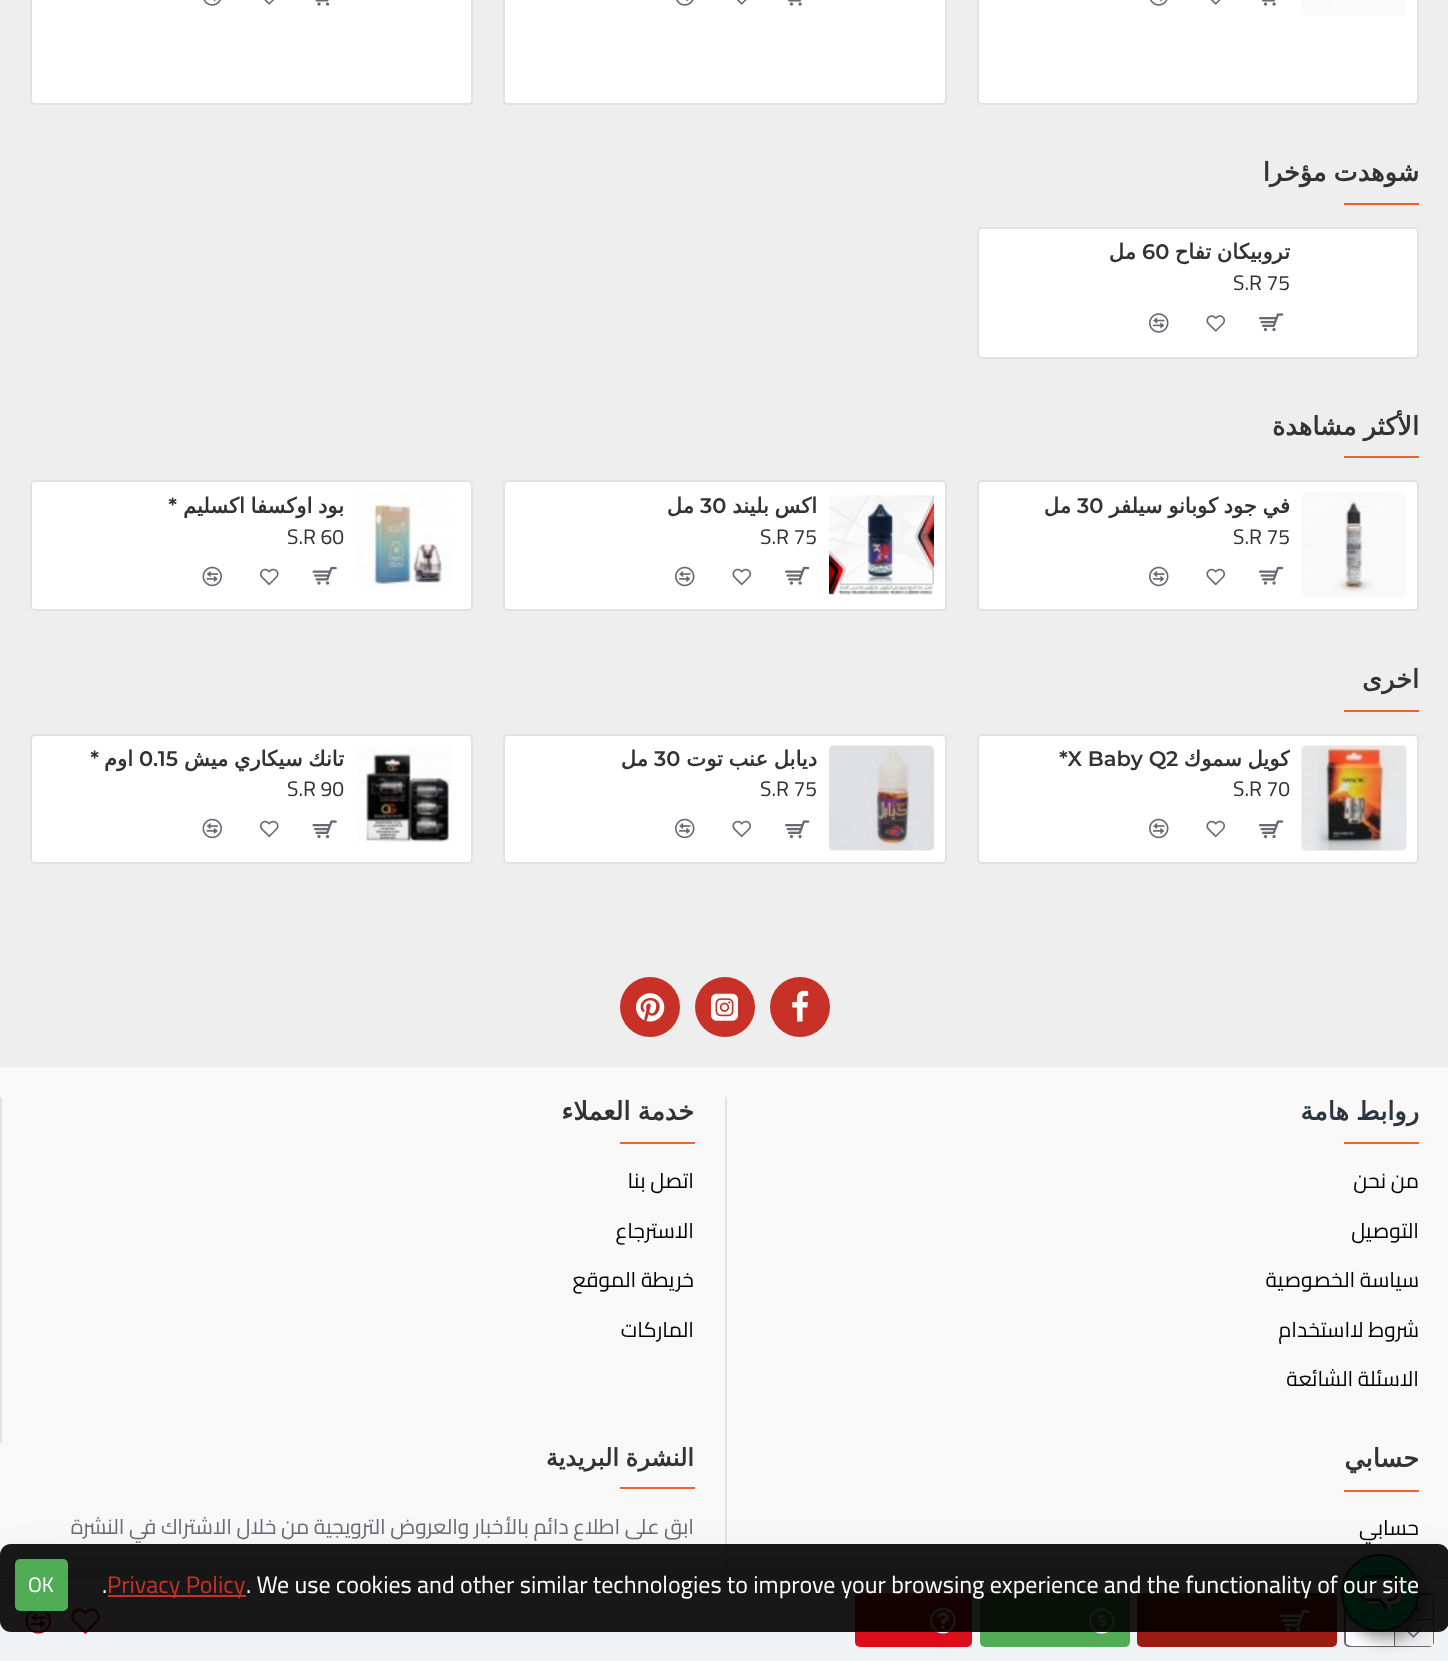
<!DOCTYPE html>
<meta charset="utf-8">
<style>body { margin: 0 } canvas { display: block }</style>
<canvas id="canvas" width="1448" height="1661"></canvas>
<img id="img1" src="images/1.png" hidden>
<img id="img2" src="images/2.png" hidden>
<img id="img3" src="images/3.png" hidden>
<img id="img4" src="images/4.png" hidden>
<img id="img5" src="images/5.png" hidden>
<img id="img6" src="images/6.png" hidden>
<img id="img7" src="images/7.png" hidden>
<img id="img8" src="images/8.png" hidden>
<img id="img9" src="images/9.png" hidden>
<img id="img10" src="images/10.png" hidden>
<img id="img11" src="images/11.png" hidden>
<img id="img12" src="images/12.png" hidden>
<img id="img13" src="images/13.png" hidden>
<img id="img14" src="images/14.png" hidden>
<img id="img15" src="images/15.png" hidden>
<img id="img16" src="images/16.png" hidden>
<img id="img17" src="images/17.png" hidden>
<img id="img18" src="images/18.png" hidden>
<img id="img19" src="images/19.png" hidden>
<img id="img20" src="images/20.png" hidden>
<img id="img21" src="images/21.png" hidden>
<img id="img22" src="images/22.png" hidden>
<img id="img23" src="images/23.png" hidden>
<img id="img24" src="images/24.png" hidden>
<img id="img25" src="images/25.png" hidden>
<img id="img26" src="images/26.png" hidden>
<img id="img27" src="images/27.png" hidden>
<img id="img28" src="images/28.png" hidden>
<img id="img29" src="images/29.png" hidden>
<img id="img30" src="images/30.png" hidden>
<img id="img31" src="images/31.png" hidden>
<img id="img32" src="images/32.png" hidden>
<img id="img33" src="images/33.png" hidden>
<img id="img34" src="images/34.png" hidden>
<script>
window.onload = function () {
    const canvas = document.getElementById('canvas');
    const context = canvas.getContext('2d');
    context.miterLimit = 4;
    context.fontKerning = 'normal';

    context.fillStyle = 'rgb(248, 248, 248)';
    context.fillRect(0, 0, 1448, 1661);
    context.fillStyle = 'rgb(238, 238, 238)';
    context.fillRect(0, 0, 1448, 1067);
    context.fillStyle = 'rgb(255, 255, 255)';
    context.beginPath();
    context.roundRect(978, -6, 440, 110, 4);
    context.fill();
    context.strokeStyle = 'rgb(226, 226, 226)';
    context.lineWidth = 2;
    context.stroke();
    context.drawImage(document.getElementById('img1'), 1301, 0, 105, 16);
    context.drawImage(document.getElementById('img2'), 1262, 0, 14, 6);
    context.drawImage(document.getElementById('img3'), 1210, 0, 11, 5);
    context.drawImage(document.getElementById('img4'), 1150, 0, 18, 6);
    context.beginPath();
    context.roundRect(504, -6, 442, 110, 4);
    context.fill();
    context.stroke();
    context.drawImage(document.getElementById('img2'), 788, 0, 14, 6);
    context.drawImage(document.getElementById('img3'), 736, 0, 11, 5);
    context.drawImage(document.getElementById('img4'), 676, 0, 18, 6);
    context.beginPath();
    context.roundRect(31, -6, 441, 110, 4);
    context.fill();
    context.stroke();
    context.drawImage(document.getElementById('img5'), 315, 0, 15, 6);
    context.drawImage(document.getElementById('img6'), 264, 0, 10, 5);
    context.drawImage(document.getElementById('img7'), 203, 0, 18, 6);
    context.fillStyle = 'rgb(233, 102, 49)';
    context.fillRect(1344, 203, 75, 2);
    context.fillStyle = 'rgb(255, 255, 255)';
    context.beginPath();
    context.roundRect(978, 228, 440, 130, 4);
    context.fill();
    context.stroke();
    context.drawImage(document.getElementById('img8'), 1259, 313, 25, 19);
    context.drawImage(document.getElementById('img9'), 1206, 315, 19, 17);
    context.drawImage(document.getElementById('img10'), 1149, 313, 20, 20);
    context.fillStyle = 'rgb(233, 102, 49)';
    context.fillRect(1344, 456, 75, 2);
    context.fillStyle = 'rgb(255, 255, 255)';
    context.beginPath();
    context.roundRect(978, 481, 440, 129, 4);
    context.fill();
    context.stroke();
    context.drawImage(document.getElementById('img11'), 1301, 492, 106, 105);
    context.drawImage(document.getElementById('img12'), 1259, 566, 25, 19);
    context.drawImage(document.getElementById('img13'), 1206, 568, 19, 18);
    context.drawImage(document.getElementById('img14'), 1149, 566, 20, 21);
    context.beginPath();
    context.roundRect(504, 481, 442, 129, 4);
    context.fill();
    context.stroke();
    context.drawImage(document.getElementById('img15'), 829, 495, 105, 100);
    context.drawImage(document.getElementById('img12'), 785, 566, 25, 19);
    context.drawImage(document.getElementById('img13'), 732, 568, 19, 18);
    context.drawImage(document.getElementById('img14'), 675, 566, 20, 21);
    context.beginPath();
    context.roundRect(31, 481, 441, 129, 4);
    context.fill();
    context.stroke();
    context.drawImage(document.getElementById('img16'), 357, 492, 94, 96);
    context.drawImage(document.getElementById('img17'), 312, 566, 25, 19);
    context.drawImage(document.getElementById('img18'), 259, 568, 20, 18);
    context.drawImage(document.getElementById('img19'), 202, 566, 20, 21);
    context.fillStyle = 'rgb(233, 102, 49)';
    context.fillRect(1344, 710, 75, 2);
    context.fillStyle = 'rgb(255, 255, 255)';
    context.beginPath();
    context.roundRect(978, 735, 440, 128, 4);
    context.fill();
    context.stroke();
    context.drawImage(document.getElementById('img20'), 1301, 745, 106, 106);
    context.drawImage(document.getElementById('img8'), 1259, 820, 25, 19);
    context.drawImage(document.getElementById('img13'), 1206, 820, 19, 18);
    context.drawImage(document.getElementById('img14'), 1149, 818, 20, 21);
    context.beginPath();
    context.roundRect(504, 735, 442, 128, 4);
    context.fill();
    context.stroke();
    context.drawImage(document.getElementById('img21'), 829, 745, 105, 106);
    context.drawImage(document.getElementById('img8'), 785, 820, 25, 19);
    context.drawImage(document.getElementById('img13'), 732, 820, 19, 18);
    context.drawImage(document.getElementById('img14'), 675, 818, 20, 21);
    context.beginPath();
    context.roundRect(31, 735, 441, 128, 4);
    context.fill();
    context.stroke();
    context.drawImage(document.getElementById('img22'), 358, 746, 94, 97);
    context.drawImage(document.getElementById('img23'), 312, 820, 25, 19);
    context.drawImage(document.getElementById('img18'), 259, 820, 20, 18);
    context.drawImage(document.getElementById('img19'), 202, 818, 20, 21);
    context.fillStyle = 'rgb(200, 49, 40)';
    context.beginPath();
    context.arc(800, 1007, 30, 0, 2 * Math.PI);
    context.fill();
    context.drawImage(document.getElementById('img24'), 792, 990, 17, 32);
    context.beginPath();
    context.arc(725, 1007, 30, 0, 2 * Math.PI);
    context.fill();
    context.drawImage(document.getElementById('img25'), 711, 993, 27, 28);
    context.beginPath();
    context.arc(650, 1007, 30, 0, 2 * Math.PI);
    context.fill();
    context.drawImage(document.getElementById('img26'), 636, 993, 29, 29);
    context.fillStyle = 'rgb(226, 226, 226)';
    context.fillRect(725, 1097, 2, 480);
    context.fillStyle = 'rgb(233, 102, 49)';
    context.fillRect(1344, 1142, 75, 2);
    context.fillStyle = 'rgb(226, 226, 226)';
    context.fillRect(0, 1097, 2, 346);
    context.fillStyle = 'rgb(233, 102, 49)';
    context.fillRect(620, 1142, 75, 2);
    context.fillRect(1344, 1490, 75, 2);
    context.fillRect(620, 1487, 75, 2);
    context.fillStyle = 'rgba(0, 0, 0, 0.15)';
    context.filter = 'blur(22.5px)';
    context.beginPath();
    context.rect(8, 1569, 1434, 71);
    context.fill();
    context.filter = 'none';
    context.fillStyle = 'rgb(240, 242, 245)';
    context.fillRect(0, 1579, 1448, 82);
    context.fillStyle = 'rgb(226, 226, 226)';
    context.fillRect(0, 1577, 1448, 2);
    context.beginPath();
    context.roundRect(1345, 1594, 88, 52, 4);
    context.strokeStyle = 'rgb(105, 105, 115)';
    context.stroke();
    context.fillStyle = 'rgb(255, 255, 255)';
    context.beginPath();
    context.roundRect(1346, 1595, 87, 51, 5);
    context.fill();
    context.fillStyle = 'rgb(105, 105, 115)';
    context.fillRect(1394, 1629, 1, 17);
    context.fillStyle = 'rgb(238, 238, 238)';
    context.fillRect(1409, 1595, 24, 24);
    context.fillStyle = 'rgb(105, 105, 115)';
    context.fillRect(1408, 1619, 25, 1);
    context.drawImage(document.getElementById('img27'), 1415, 1606, 6, 6);
    context.fillStyle = 'rgb(238, 238, 238)';
    context.fillRect(1395, 1620, 38, 26);
    context.drawImage(document.getElementById('img28'), 1405, 1629, 16, 9);
    context.fillStyle = 'rgb(157, 27, 19)';
    context.beginPath();
    context.roundRect(1137, 1593, 200, 54, 5);
    context.fill();
    context.drawImage(document.getElementById('img29'), 1280, 1610, 30, 22);
    context.fillStyle = 'rgb(80, 173, 85)';
    context.beginPath();
    context.roundRect(980, 1593, 150, 54, 5);
    context.fill();
    context.drawImage(document.getElementById('img30'), 1089, 1608, 26, 26);
    context.fillStyle = 'rgb(221, 14, 28)';
    context.beginPath();
    context.roundRect(855, 1593, 117, 54, 5);
    context.fill();
    context.drawImage(document.getElementById('img31'), 930, 1607, 26, 27);
    context.drawImage(document.getElementById('img32'), 71, 1608, 29, 26);
    context.drawImage(document.getElementById('img33'), 25, 1611, 26, 23);
    context.fillStyle = 'rgba(0, 0, 0, 0.4)';
    context.filter = 'blur(7.5px)';
    context.beginPath();
    context.roundRect(1347, 1562, 78, 78, 39);
    context.fill();
    context.filter = 'none';
    context.fillStyle = 'rgb(0, 231, 133)';
    context.beginPath();
    context.arc(1380, 1593, 38, 0, 2 * Math.PI);
    context.fill();
    context.strokeStyle = 'rgb(54, 54, 54)';
    context.stroke();
    context.drawImage(document.getElementById('img34'), 1359, 1575, 42, 36);
    context.fillStyle = 'rgba(0, 0, 0, 0.9)';
    context.beginPath();
    context.roundRect(0, 1544, 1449, 88, 11);
    context.fill();
    context.fillStyle = 'rgb(200, 49, 40)';
    context.fillRect(108, 1595, 138, 2);
    context.fillStyle = 'rgb(80, 173, 85)';
    context.beginPath();
    context.roundRect(15, 1559, 53, 52, 5);
    context.fill();
    context.wordSpacing = '-1px';
    context.direction = 'rtl';
    context.font = 'bold 25.5px DejaVu Sans';
    context.fillStyle = 'rgb(51, 51, 51)';
    context.fillText('شوهدت مؤخرا', 1419, 181);
    context.save();
    context.beginPath();
    context.rect(989, 239, 301, 27);
    context.clip();
    context.font = 'bold 21px DejaVu Sans';
    context.fillText('تروبيكان تفاح', 1290, 259);
    context.restore();
    context.wordSpacing = '0px';
    context.direction = 'ltr';
    context.font = '600 21px Montserrat';
    context.fillText('60', 1142, 259);
    context.direction = 'rtl';
    context.font = 'bold 21px DejaVu Sans';
    context.fillText('مل', 1136, 259);
    context.direction = 'ltr';
    context.font = '21px Cairo';
    context.fillText('S.R 75', 1233, 290);
    context.wordSpacing = '-1px';
    context.direction = 'rtl';
    context.font = 'bold 25.5px DejaVu Sans';
    context.fillText('الأكثر مشاهدة', 1419, 435);
    context.save();
    context.beginPath();
    context.rect(989, 492, 301, 29);
    context.clip();
    context.font = 'bold 21px DejaVu Sans';
    context.fillText('في جود كوبانو سيلفر', 1290, 513);
    context.restore();
    context.wordSpacing = '0px';
    context.direction = 'ltr';
    context.font = '600 21px Montserrat';
    context.fillText('30', 1077, 513);
    context.direction = 'rtl';
    context.font = 'bold 21px DejaVu Sans';
    context.fillText('مل', 1071, 513);
    context.direction = 'ltr';
    context.font = '21px Cairo';
    context.fillText('S.R 75', 1233, 544);
    context.wordSpacing = '-1px';
    context.direction = 'rtl';
    context.font = 'bold 21px DejaVu Sans';
    context.fillText('اكس بليند', 817, 513);
    context.wordSpacing = '0px';
    context.direction = 'ltr';
    context.font = '600 21px Montserrat';
    context.fillText('30', 700, 513);
    context.direction = 'rtl';
    context.font = 'bold 21px DejaVu Sans';
    context.fillText('مل', 694, 513);
    context.direction = 'ltr';
    context.font = '21px Cairo';
    context.fillText('S.R 75', 760, 544);
    context.wordSpacing = '-1px';
    context.direction = 'rtl';
    context.font = 'bold 21px DejaVu Sans';
    context.fillText('بود اوكسفا اكسليم', 344, 513);
    context.wordSpacing = '0px';
    context.font = '600 21px Montserrat';
    context.fillText('*', 177, 513);
    context.direction = 'ltr';
    context.font = '21px Cairo';
    context.fillText('S.R 60', 287, 544);
    context.direction = 'rtl';
    context.font = 'bold 25.5px DejaVu Sans';
    context.fillText('اخرى', 1419, 688);
    context.save();
    context.beginPath();
    context.rect(989, 746, 301, 27);
    context.clip();
    context.wordSpacing = '-1px';
    context.font = 'bold 21px DejaVu Sans';
    context.fillText('كويل سموك', 1290, 766);
    context.restore();
    context.direction = 'ltr';
    context.font = '600 21px Montserrat';
    context.fillText('*X Baby Q2', 1059, 766);
    context.font = '21px Cairo';
    context.fillText('S.R 70', 1233, 796);
    context.wordSpacing = '-1px';
    context.direction = 'rtl';
    context.font = 'bold 21px DejaVu Sans';
    context.fillText('ديابل عنب توت', 817, 766);
    context.wordSpacing = '0px';
    context.direction = 'ltr';
    context.font = '600 21px Montserrat';
    context.fillText('30', 654, 766);
    context.direction = 'rtl';
    context.font = 'bold 21px DejaVu Sans';
    context.fillText('مل', 648, 766);
    context.direction = 'ltr';
    context.font = '21px Cairo';
    context.fillText('S.R 75', 760, 796);
    context.save();
    context.beginPath();
    context.rect(42, 746, 303, 27);
    context.clip();
    context.wordSpacing = '-1px';
    context.direction = 'rtl';
    context.font = 'bold 21px DejaVu Sans';
    context.fillText('تانك سيكاري ميش', 344, 766);
    context.restore();
    context.font = '600 21px Montserrat';
    context.fillText('0.15', 139, 766);
    context.direction = 'rtl';
    context.font = 'bold 21px DejaVu Sans';
    context.fillText('اوم', 133, 766);
    context.font = '600 21px Montserrat';
    context.fillText('*', 99, 766);
    context.direction = 'ltr';
    context.font = '21px Cairo';
    context.fillText('S.R 90', 287, 796);
    context.wordSpacing = '-1px';
    context.direction = 'rtl';
    context.font = 'bold 25.5px DejaVu Sans';
    context.fillStyle = 'rgb(44, 54, 64)';
    context.fillText('روابط هامة', 1419, 1120);
    context.wordSpacing = '0px';
    context.font = '21px Cairo';
    context.fillStyle = 'rgb(0, 0, 0)';
    context.fillText('من نحن', 1419, 1188);
    context.fillText('التوصيل', 1419, 1238);
    context.fillText('سياسة الخصوصية', 1419, 1287);
    context.fillText('شروط لااستخدام', 1419, 1337);
    context.fillText('الاسئلة الشائعة', 1419, 1386);
    context.wordSpacing = '-1px';
    context.font = 'bold 25.5px DejaVu Sans';
    context.fillStyle = 'rgb(51, 51, 51)';
    context.fillText('خدمة العملاء', 694, 1120);
    context.wordSpacing = '0px';
    context.font = '21px Cairo';
    context.fillStyle = 'rgb(0, 0, 0)';
    context.fillText('اتصل بنا', 694, 1188);
    context.fillText('الاسترجاع', 694, 1238);
    context.fillText('خريطة الموقع', 694, 1287);
    context.fillText('الماركات', 694, 1337);
    context.font = 'bold 25.5px DejaVu Sans';
    context.fillStyle = 'rgb(51, 51, 51)';
    context.fillText('حسابي', 1419, 1467);
    context.font = '21px Cairo';
    context.fillStyle = 'rgb(0, 0, 0)';
    context.fillText('حسابي', 1419, 1535);
    context.wordSpacing = '-1px';
    context.font = 'bold 24px DejaVu Sans';
    context.fillStyle = 'rgb(51, 51, 51)';
    context.fillText('النشرة البريدية', 694, 1466);
    context.wordSpacing = '0px';
    context.font = '21px Cairo';
    context.fillStyle = 'rgb(105, 105, 115)';
    context.fillText('ابق على اطلاع دائم بالأخبار والعروض الترويجية من خلال الاشتراك في النشرة', 694, 1534);
    context.direction = 'ltr';
    context.font = '24px Cairo';
    context.fillStyle = 'rgb(255, 255, 255)';
    context.fillText('. We use cookies and other similar technologies to improve your browsing experience and the functionality of our site', 246, 1593);
    context.fillStyle = 'rgb(200, 49, 40)';
    context.fillText('Privacy Policy', 107, 1593);
    context.fillStyle = 'rgb(255, 255, 255)';
    context.fillText('.', 102, 1593);
    context.font = '21px Cairo';
    context.fillText('OK', 28, 1592);
};
</script>
